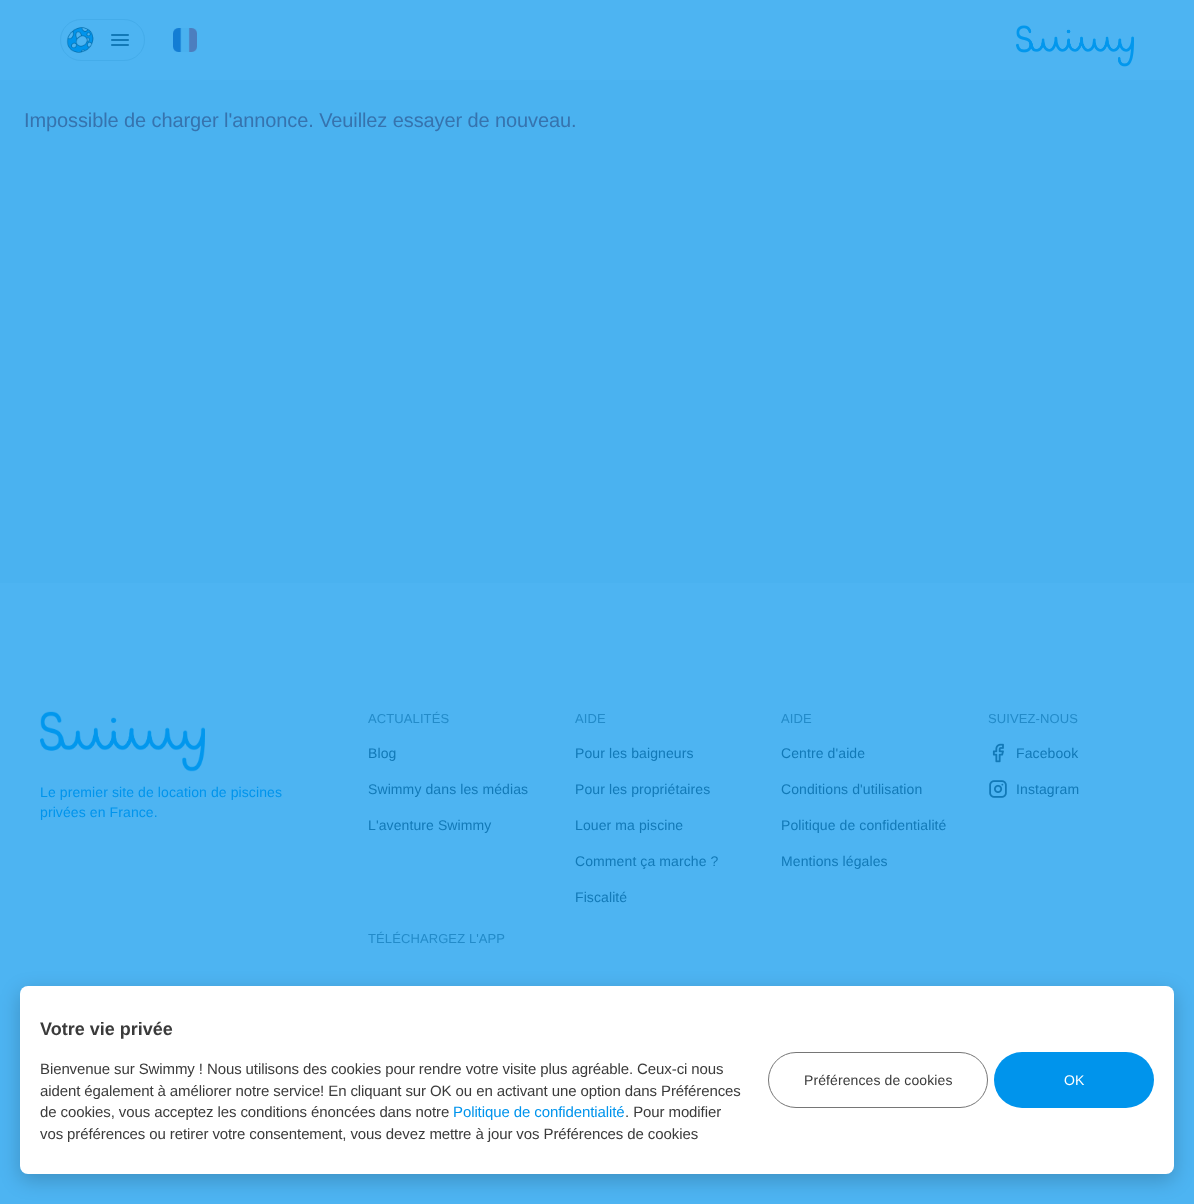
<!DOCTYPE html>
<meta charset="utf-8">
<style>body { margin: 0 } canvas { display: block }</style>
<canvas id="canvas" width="1194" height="1204"></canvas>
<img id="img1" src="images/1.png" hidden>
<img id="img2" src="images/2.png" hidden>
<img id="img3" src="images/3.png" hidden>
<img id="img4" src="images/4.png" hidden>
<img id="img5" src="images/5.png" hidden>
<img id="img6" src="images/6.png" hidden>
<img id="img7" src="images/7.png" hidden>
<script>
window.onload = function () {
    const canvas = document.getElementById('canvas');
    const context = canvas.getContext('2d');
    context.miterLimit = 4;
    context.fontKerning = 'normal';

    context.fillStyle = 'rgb(74, 178, 240)';
    context.fillRect(0, 0, 1194, 1204);
    context.fillStyle = 'rgb(77, 180, 242)';
    context.fillRect(0, 0, 1194, 80);
    context.beginPath();
    context.roundRect(60.5, 19.5, 84, 41, 20.5);
    context.strokeStyle = 'rgb(68, 172, 234)';
    context.stroke();
    context.drawImage(document.getElementById('img1'), 66, 27, 28, 26);
    context.drawImage(document.getElementById('img2'), 111, 34, 18, 12);
    context.drawImage(document.getElementById('img3'), 173, 28, 24, 24);
    context.drawImage(document.getElementById('img4'), 1016, 25, 118, 42);
    context.fillRect(0, 583, 1194, 621);
    context.drawImage(document.getElementById('img5'), 40, 711, 165, 61);
    context.drawImage(document.getElementById('img6'), 992, 743, 12, 20);
    context.drawImage(document.getElementById('img7'), 989, 780, 18, 18);
    context.fillStyle = 'rgba(0, 0, 0, 0.2)';
    context.filter = 'blur(10px)';
    context.beginPath();
    context.roundRect(20, 992, 1154, 188, 8);
    context.fill();
    context.filter = 'none';
    context.fillStyle = 'rgb(255, 255, 255)';
    context.beginPath();
    context.roundRect(20, 986, 1154, 188, 8);
    context.fill();
    context.beginPath();
    context.roundRect(768.5, 1052.5, 219, 55, 27.5);
    context.strokeStyle = 'rgb(118, 118, 118)';
    context.stroke();
    context.fillStyle = 'rgb(0, 148, 236)';
    context.beginPath();
    context.roundRect(994, 1052, 160, 56, 28);
    context.fill();
    context.letterSpacing = '-0.1px';
    context.font = '20px Liberation Sans';
    context.fillStyle = 'rgb(54, 115, 174)';
    context.fillText('Impossible de charger l\'annonce. Veuillez essayer de nouveau.', 24, 127);
    context.letterSpacing = '0.1px';
    context.font = '14px Liberation Sans';
    context.fillStyle = 'rgb(0, 148, 236)';
    context.fillText('Le premier site de location de piscines', 40, 797);
    context.fillText('privées en France.', 40, 817);
    context.font = '13px Liberation Sans';
    context.fillStyle = 'rgb(35, 139, 201)';
    context.fillText('ACTUALITÉS', 368, 723);
    context.font = '14px Liberation Sans';
    context.fillStyle = 'rgb(18, 121, 183)';
    context.fillText('Blog', 368, 758);
    context.fillText('Swimmy dans les médias', 368, 794);
    context.fillText('L\'aventure Swimmy', 368, 830);
    context.font = '13px Liberation Sans';
    context.fillStyle = 'rgb(35, 139, 201)';
    context.fillText('AIDE', 575, 723);
    context.font = '14px Liberation Sans';
    context.fillStyle = 'rgb(18, 121, 183)';
    context.fillText('Pour les baigneurs', 575, 758);
    context.fillText('Pour les propriétaires', 575, 794);
    context.fillText('Louer ma piscine', 575, 830);
    context.fillText('Comment ça marche ?', 575, 866);
    context.fillText('Fiscalité', 575, 902);
    context.font = '13px Liberation Sans';
    context.fillStyle = 'rgb(35, 139, 201)';
    context.fillText('AIDE', 781, 723);
    context.font = '14px Liberation Sans';
    context.fillStyle = 'rgb(18, 121, 183)';
    context.fillText('Centre d\'aide', 781, 758);
    context.fillText('Conditions d\'utilisation', 781, 794);
    context.fillText('Politique de confidentialité', 781, 830);
    context.fillText('Mentions légales', 781, 866);
    context.font = '13px Liberation Sans';
    context.fillStyle = 'rgb(35, 139, 201)';
    context.fillText('SUIVEZ-NOUS', 988, 723);
    context.font = '14px Liberation Sans';
    context.fillStyle = 'rgb(18, 121, 183)';
    context.fillText('Facebook', 1016, 758);
    context.fillText('Instagram', 1016, 794);
    context.font = '13px Liberation Sans';
    context.fillStyle = 'rgb(35, 139, 201)';
    context.fillText('TÉLÉCHARGEZ L\'APP', 368, 943);
    context.letterSpacing = '0px';
    context.font = 'bold 18px Liberation Sans';
    context.fillStyle = 'rgb(59, 59, 59)';
    context.fillText('Votre vie privée', 40, 1035);
    context.letterSpacing = '-0.1px';
    context.font = '15px Liberation Sans';
    context.fillText('Bienvenue sur Swimmy ! Nous utilisons des cookies pour rendre votre visite plus agréable. Ceux-ci nous', 40, 1074);
    context.fillText('aident également à améliorer notre service! En cliquant sur OK ou en activant une option dans Préférences', 40, 1096);
    context.fillText('de cookies, vous acceptez les conditions énoncées dans notre', 40, 1117);
    context.fillStyle = 'rgb(0, 148, 236)';
    context.fillText('Politique de confidentialité', 453, 1117);
    context.fillStyle = 'rgb(59, 59, 59)';
    context.fillText('. Pour modifier', 625, 1117);
    context.fillText('vos préférences ou retirer votre consentement, vous devez mettre à jour vos Préférences de cookies', 40, 1139);
    context.letterSpacing = '0.1px';
    context.font = '14px Liberation Sans';
    context.fillText('Préférences de cookies', 804, 1085);
    context.fillStyle = 'rgb(255, 255, 255)';
    context.fillText('OK', 1064, 1085);
};
</script>
